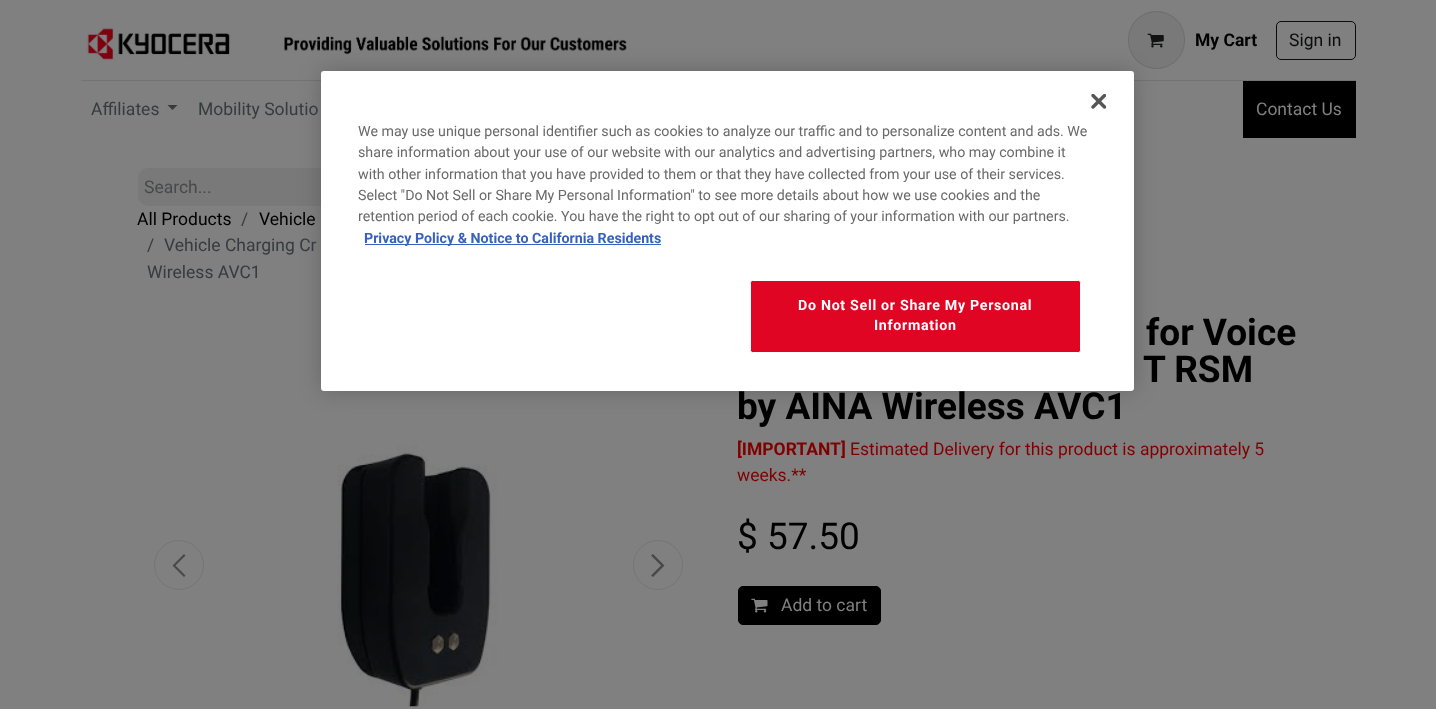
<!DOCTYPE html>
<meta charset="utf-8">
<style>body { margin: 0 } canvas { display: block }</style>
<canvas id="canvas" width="1436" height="709"></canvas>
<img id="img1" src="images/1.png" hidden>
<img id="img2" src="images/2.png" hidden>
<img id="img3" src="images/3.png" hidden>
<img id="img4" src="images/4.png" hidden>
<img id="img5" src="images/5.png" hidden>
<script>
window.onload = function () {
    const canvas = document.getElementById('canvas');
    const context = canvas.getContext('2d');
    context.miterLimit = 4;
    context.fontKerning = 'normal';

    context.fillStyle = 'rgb(128, 128, 128)';
    context.fillRect(0, 0, 1436, 709);
    context.drawImage(document.getElementById('img1'), 86, 26, 541, 36);
    context.fillStyle = 'rgb(122, 121, 121)';
    context.beginPath();
    context.roundRect(1128, 11, 57, 58, 28.5);
    context.fill();
    context.beginPath();
    context.roundRect(1128.5, 11.5, 56, 57, 28);
    context.strokeStyle = 'rgba(0, 0, 0, 0.1)';
    context.stroke();
    context.drawImage(document.getElementById('img2'), 1147, 33, 17, 15);
    context.beginPath();
    context.roundRect(1276.5, 21.5, 79, 38, 4.5);
    context.strokeStyle = 'rgb(11, 12, 14)';
    context.stroke();
    context.fillStyle = 'rgb(115, 115, 115)';
    context.fillRect(81, 80, 1275, 1);
    context.fillStyle = 'rgb(58, 58, 58)';
    context.beginPath();
    context.moveTo(167.5, 105);
    context.lineTo(177.5, 105);
    context.lineTo(172.5, 110);
    context.closePath();
    context.fill();
    context.fillStyle = 'rgb(0, 0, 0)';
    context.fillRect(1243, 81, 113, 57);
    context.fillStyle = 'rgb(122, 121, 121)';
    context.beginPath();
    context.roundRect(138, 168, 517, 38, [10, 0, 0, 10]);
    context.fill();
    context.beginPath();
    context.arc(179, 565, 24.5, 0, 2 * Math.PI);
    context.strokeStyle = 'rgb(116, 117, 119)';
    context.stroke();
    context.fillStyle = 'rgb(72, 73, 74)';
    context.beginPath();
    context.moveTo(172.5, 565.5);
    context.lineTo(184, 554);
    context.lineTo(185.5, 555.5);
    context.lineTo(175.5, 565.5);
    context.lineTo(185.5, 575.5);
    context.lineTo(184, 577);
    context.closePath();
    context.fill();
    context.drawImage(document.getElementById('img3'), 337, 445, 160, 262);
    context.beginPath();
    context.arc(658, 565, 24.5, 0, 2 * Math.PI);
    context.stroke();
    context.beginPath();
    context.moveTo(664.5, 565.5);
    context.lineTo(653, 577);
    context.lineTo(651, 575.5);
    context.lineTo(661, 565.5);
    context.lineTo(651, 555.5);
    context.lineTo(653, 554);
    context.closePath();
    context.fill();
    context.fillStyle = 'rgb(0, 0, 0)';
    context.beginPath();
    context.roundRect(738.5, 586.5, 142, 38, 4.5);
    context.fill();
    context.strokeStyle = 'rgb(0, 0, 0)';
    context.stroke();
    context.drawImage(document.getElementById('img4'), 751, 598, 17, 15);
    context.fillStyle = 'rgba(0, 0, 0, 0.2)';
    context.filter = 'blur(11px)';
    context.beginPath();
    context.roundRect(321, 71, 813, 320, 3);
    context.fill();
    context.filter = 'none';
    context.fillStyle = 'rgb(255, 255, 255)';
    context.beginPath();
    context.roundRect(321, 71, 813, 320, 3);
    context.fill();
    context.drawImage(document.getElementById('img5'), 1091, 94, 15, 15);
    context.fillStyle = 'rgb(56, 96, 190)';
    context.fillRect(365, 244, 296, 1);
    context.fillStyle = 'rgb(223, 5, 35)';
    context.beginPath();
    context.roundRect(750.5, 280.5, 330, 72, 2);
    context.fill();
    context.strokeStyle = 'rgb(255, 255, 255)';
    context.stroke();
    context.font = 'bold 17.5px Roboto';
    context.fillStyle = 'rgb(0, 0, 0)';
    context.fillText('My Cart', 1195, 46);
    context.font = '17.5px Roboto';
    context.fillStyle = 'rgb(11, 12, 14)';
    context.fillText('Sign in', 1289, 46);
    context.fillStyle = 'rgb(54, 59, 63)';
    context.fillText('Affiliates', 91, 115);
    context.fillText('Mobility Solutio', 198, 115);
    context.fillStyle = 'rgb(128, 128, 128)';
    context.fillText('Contact Us', 1256, 115);
    context.fillStyle = 'rgb(72, 73, 74)';
    context.fillText('Search...', 144, 193);
    context.fillStyle = 'rgb(0, 0, 0)';
    context.fillText('All Products', 137, 225);
    context.fillStyle = 'rgb(54, 59, 63)';
    context.fillText('/', 241, 225);
    context.fillStyle = 'rgb(0, 0, 0)';
    context.fillText('Vehicle', 259, 225);
    context.fillStyle = 'rgb(54, 59, 63)';
    context.fillText('/', 147, 251);
    context.fillText('Vehicle Charging Cr', 164, 251);
    context.fillText('Wireless AVC1', 147, 278);
    context.font = 'bold 37px Roboto';
    context.fillStyle = 'rgb(0, 0, 0)';
    context.fillText('for Voice', 1146, 345);
    context.fillText('T RSM', 1143, 382);
    context.fillText('by AINA Wireless AVC1', 737, 419);
    context.font = 'bold 17.5px Roboto';
    context.fillStyle = 'rgb(128, 0, 0)';
    context.fillText('[IMPORTANT]', 737, 455);
    context.font = '17.5px Roboto';
    context.fillText('Estimated Delivery for this product is approximately 5', 850, 455);
    context.fillText('weeks.**', 737, 481);
    context.font = '37px Roboto';
    context.fillStyle = 'rgb(0, 0, 0)';
    context.fillText('$ 57.50', 737, 549);
    context.font = '17.5px Roboto';
    context.fillStyle = 'rgb(128, 128, 128)';
    context.fillText('Add to cart', 781, 611);
    context.font = '14.23px Roboto';
    context.fillStyle = 'rgb(105, 105, 105)';
    context.fillText('We may use unique personal identifier such as cookies to analyze our traffic and to personalize content and ads. We', 358, 136);
    context.fillText('share information about your use of our website with our analytics and advertising partners, who may combine it', 358, 157);
    context.fillText('with other information that you have provided to them or that they have collected from your use of their services.', 358, 179);
    context.fillText('Select "Do Not Sell or Share My Personal Information" to see more details about how we use cookies and the', 358, 200);
    context.fillText('retention period of each cookie. You have the right to opt out of our sharing of your information with our partners.', 358, 221);
    context.font = 'bold 14.23px Roboto';
    context.fillStyle = 'rgb(56, 96, 190)';
    context.fillText('Privacy Policy & Notice to California Residents', 364, 243);
    context.letterSpacing = '0.7px';
    context.fillStyle = 'rgb(255, 255, 255)';
    context.fillText('Do Not Sell or Share My Personal', 798, 310);
    context.fillText('Information', 874, 330);
};
</script>
